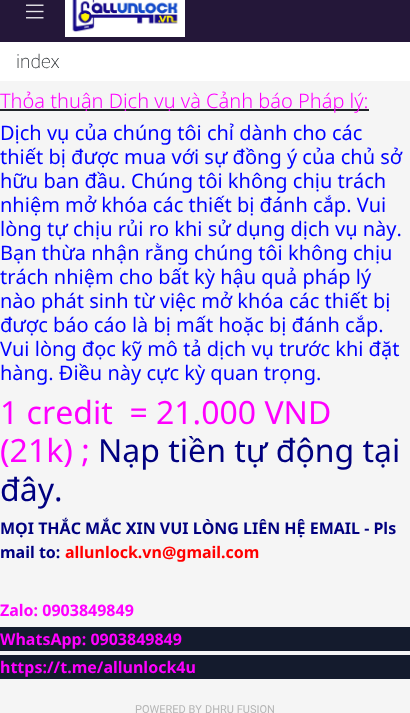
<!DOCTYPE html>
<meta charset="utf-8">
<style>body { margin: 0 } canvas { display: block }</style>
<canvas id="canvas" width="410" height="713"></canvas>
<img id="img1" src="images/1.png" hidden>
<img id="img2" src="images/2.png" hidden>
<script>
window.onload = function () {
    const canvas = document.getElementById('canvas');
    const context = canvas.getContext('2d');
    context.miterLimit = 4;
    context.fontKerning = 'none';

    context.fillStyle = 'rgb(245, 245, 245)';
    context.fillRect(0, 0, 410, 713);
    context.fillStyle = 'rgb(36, 23, 57)';
    context.fillRect(0, 0, 410, 42);
    context.drawImage(document.getElementById('img1'), 26, 4, 18, 15);
    context.drawImage(document.getElementById('img2'), 65, 0, 120, 37);
    context.fillStyle = 'rgb(255, 255, 255)';
    context.fillRect(0, 42, 410, 39);
    context.fillStyle = 'rgb(33, 37, 41)';
    context.fillRect(0, 109, 369, 2);
    context.fillStyle = 'rgb(20, 27, 45)';
    context.fillRect(0, 627, 410, 24);
    context.fillRect(0, 655, 410, 24);
    context.font = '200 19px Roboto';
    context.fillStyle = 'rgb(33, 37, 41)';
    context.fillText('index', 16, 68);
    context.font = '300 20px Noto Sans';
    context.fillStyle = 'rgb(255, 0, 255)';
    context.fillText('Thỏa thuận Dịch vụ và Cảnh báo Pháp lý:', 0, 108);
    context.font = '20px Noto Sans';
    context.fillStyle = 'rgb(0, 0, 255)';
    context.fillText('Dịch vụ của chúng tôi chỉ dành cho các', 0, 140);
    context.fillText('thiết bị được mua với sự đồng ý của chủ sở', 0, 164);
    context.fillText('hữu ban đầu. Chúng tôi không chịu trách', 0, 188);
    context.fillText('nhiệm mở khóa các thiết bị đánh cắp. Vui', 0, 212);
    context.fillText('lòng tự chịu rủi ro khi sử dụng dịch vụ này.', 0, 236);
    context.fillText('Bạn thừa nhận rằng chúng tôi không chịu', 0, 260);
    context.fillText('trách nhiệm cho bất kỳ hậu quả pháp lý', 0, 284);
    context.fillText('nào phát sinh từ việc mở khóa các thiết bị', 0, 308);
    context.fillText('được báo cáo là bị mất hoặc bị đánh cắp.', 0, 332);
    context.fillText('Vui lòng đọc kỹ mô tả dịch vụ trước khi đặt', 0, 356);
    context.fillText('hàng. Điều này cực kỳ quan trọng.', 0, 380);
    context.font = '32px Noto Sans';
    context.fillStyle = 'rgb(255, 0, 255)';
    context.fillText('1 credit  = 21.000 VND', 0, 424);
    context.fillText('(21k) ;', 0, 462);
    context.fillStyle = 'rgb(0, 0, 128)';
    context.fillText('Nạp tiền tự động tại', 98, 462);
    context.fillText('đây.', 0, 501);
    context.font = 'bold 16px Noto Sans';
    context.fillText('MỌI THẮC MẮC XIN VUI LÒNG LIÊN HỆ EMAIL - Pls', 0, 534);
    context.fillText('mail to:', 0, 558);
    context.fillStyle = 'rgb(255, 0, 0)';
    context.fillText('allunlock.vn@gmail.com', 65, 558);
    context.fillStyle = 'rgb(255, 0, 255)';
    context.fillText('Zalo: 0903849849', 0, 616);
    context.fillText('WhatsApp: 0903849849', 0, 645);
    context.fillText('https://t.me/allunlock4u', 0, 673);
    context.font = '11px Roboto';
    context.fillStyle = 'rgb(181, 181, 181)';
    context.fillText('POWERED BY', 135, 713);
    context.fillText('DHRU FUSION', 205, 713);
};
</script>
